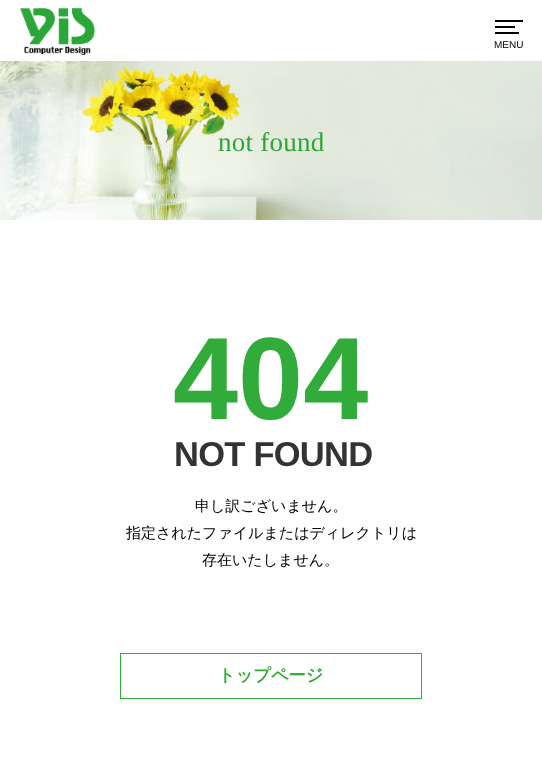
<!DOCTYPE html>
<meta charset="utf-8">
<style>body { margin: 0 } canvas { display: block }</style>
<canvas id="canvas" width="542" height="757"></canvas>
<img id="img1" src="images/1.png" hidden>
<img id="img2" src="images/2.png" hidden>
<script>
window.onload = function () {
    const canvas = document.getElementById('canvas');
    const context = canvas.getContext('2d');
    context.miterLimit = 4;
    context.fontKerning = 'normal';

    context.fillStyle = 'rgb(255, 255, 255)';
    context.fillRect(0, 0, 542, 757);
    context.drawImage(document.getElementById('img1'), 20, 8, 75, 47);
    context.fillStyle = 'rgb(0, 0, 0)';
    context.fillRect(495, 20, 28, 2);
    context.fillRect(495, 26, 20, 2);
    context.fillRect(495, 32, 24, 2);
    context.drawImage(document.getElementById('img2'), 0, 61, 542, 159);
    context.strokeStyle = 'rgb(49, 171, 57)';
    context.strokeRect(120.5, 653.5, 301, 45);
    context.font = '10px Liberation Sans';
    context.fillText('MENU', 494, 48);
    context.letterSpacing = '0.25px';
    context.font = '27px Liberation Serif';
    context.fillStyle = 'rgb(43, 167, 57)';
    context.fillText('not found', 218, 151);
    context.letterSpacing = '0px';
    context.font = 'bold 117px Liberation Sans';
    context.fillStyle = 'rgb(49, 171, 57)';
    context.fillText('404', 173, 419);
    context.letterSpacing = '-0.75px';
    context.font = 'bold 34.5px Liberation Sans';
    context.fillStyle = 'rgb(51, 51, 51)';
    context.fillText('NOT FOUND', 174, 466);
    context.letterSpacing = '0px';
    context.font = '500 15px WenQuanYi Zen Hei';
    context.fillStyle = 'rgb(0, 0, 0)';
    context.fillText('申し訳ございません。', 195, 511);
    context.fillText('指定されたファイルまたはディレクトリは', 126, 538);
    context.fillText('存在いたしません。', 202, 565);
    context.font = 'bold 17.25px WenQuanYi Zen Hei';
    context.fillStyle = 'rgb(49, 171, 57)';
    context.fillText('トップページ', 218, 681);
};
</script>
